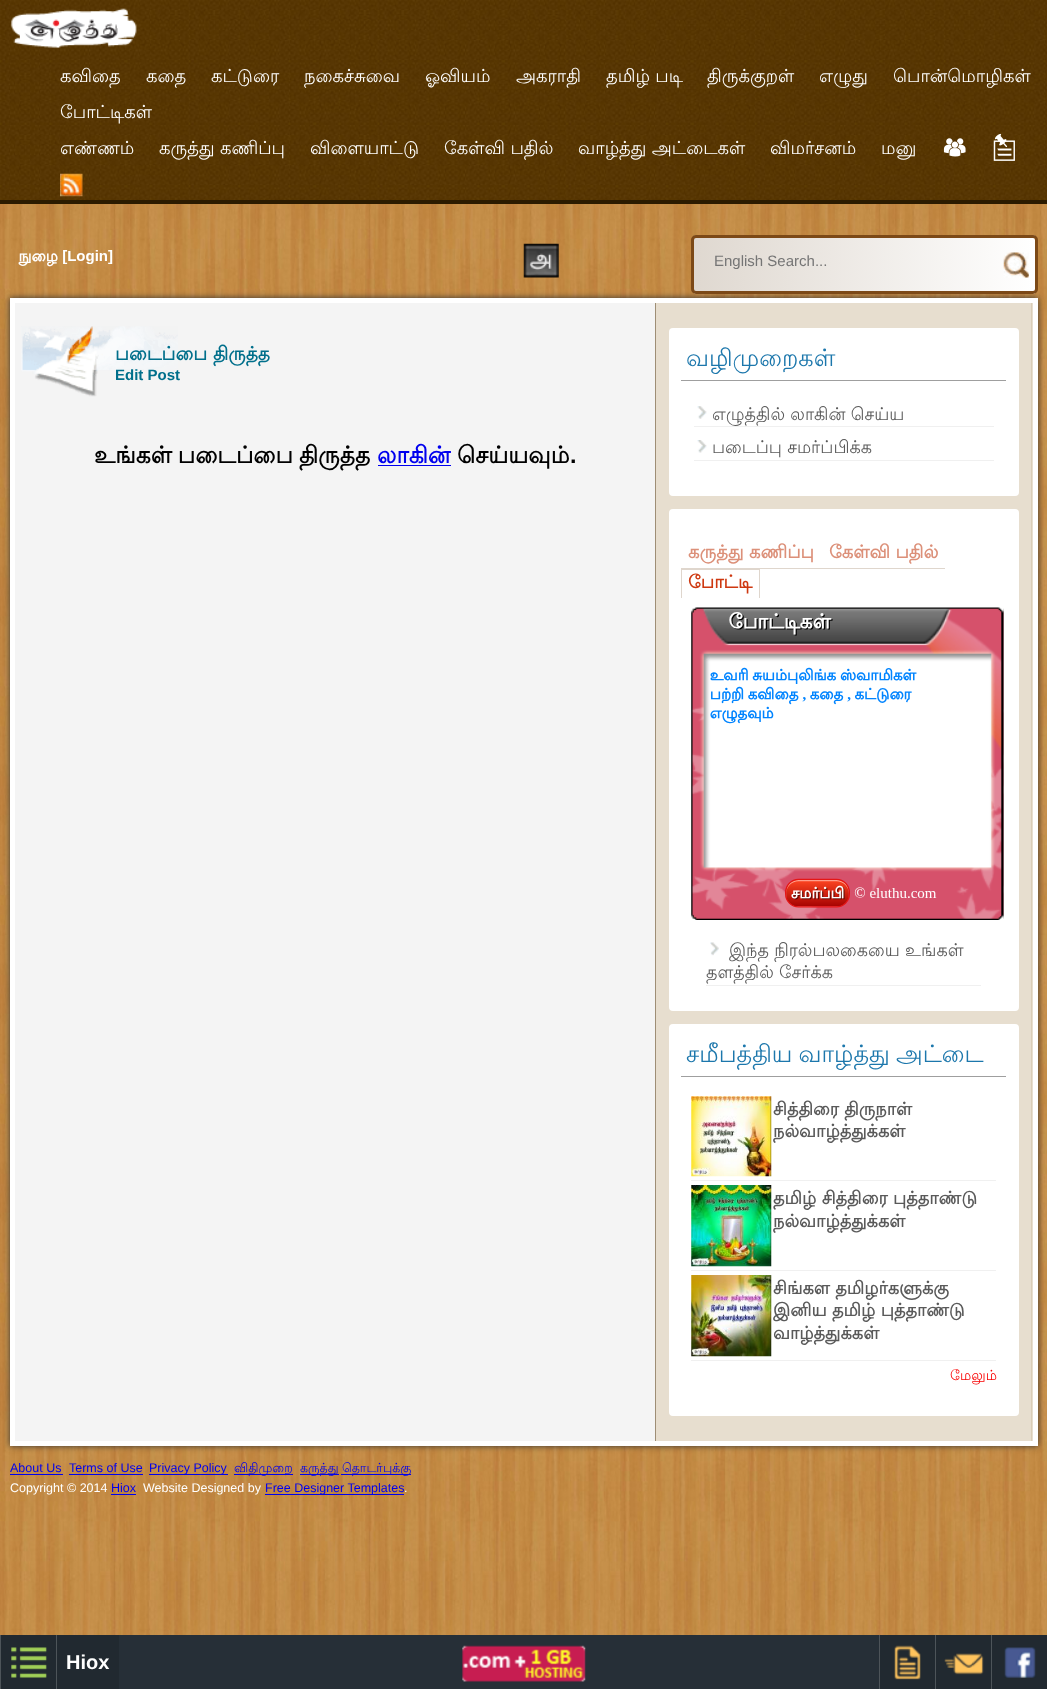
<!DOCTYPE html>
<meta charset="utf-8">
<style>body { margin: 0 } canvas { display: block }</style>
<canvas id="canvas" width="1047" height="1689"></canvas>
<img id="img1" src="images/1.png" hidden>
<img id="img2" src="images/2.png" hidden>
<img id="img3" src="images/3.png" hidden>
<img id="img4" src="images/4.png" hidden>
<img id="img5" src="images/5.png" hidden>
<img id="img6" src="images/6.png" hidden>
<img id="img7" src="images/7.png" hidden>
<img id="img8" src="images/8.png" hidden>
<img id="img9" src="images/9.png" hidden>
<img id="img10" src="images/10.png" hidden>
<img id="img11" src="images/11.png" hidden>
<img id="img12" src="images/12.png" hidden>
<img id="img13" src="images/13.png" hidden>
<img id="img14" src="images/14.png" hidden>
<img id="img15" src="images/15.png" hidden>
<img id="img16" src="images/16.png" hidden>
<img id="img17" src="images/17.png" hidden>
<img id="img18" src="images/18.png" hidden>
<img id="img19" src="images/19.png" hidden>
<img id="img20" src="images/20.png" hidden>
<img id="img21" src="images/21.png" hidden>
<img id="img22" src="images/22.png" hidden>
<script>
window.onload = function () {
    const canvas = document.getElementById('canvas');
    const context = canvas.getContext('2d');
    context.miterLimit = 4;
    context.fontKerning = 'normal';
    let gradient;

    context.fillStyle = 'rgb(255, 255, 255)';
    context.fillRect(0, 0, 1047, 1689);
    context.drawImage(document.getElementById('img1'), 0, 204, 1047, 1431);
    context.drawImage(document.getElementById('img2'), 0, 0, 1047, 200);
    context.fillStyle = 'rgb(43, 27, 0)';
    context.fillRect(0, 200, 1047, 4);
    context.drawImage(document.getElementById('img3'), 11, 8, 126, 40);
    context.drawImage(document.getElementById('img4'), 943, 138, 23, 19);
    context.drawImage(document.getElementById('img5'), 993, 133, 22, 28);
    context.drawImage(document.getElementById('img6'), 60, 173, 23, 24);
    context.drawImage(document.getElementById('img7'), 18, 250, 95, 17);
    context.drawImage(document.getElementById('img8'), 523, 243, 36, 35);
    context.fillStyle = 'rgb(51, 51, 51)';
    context.filter = 'blur(3px)';
    context.beginPath();
    context.rect(10, 298, 1028, 1148);
    context.fill();
    context.filter = 'none';
    context.save();
    context.beginPath();
    context.roundRect(691, 235, 347, 59, 5);
    context.clip();
    gradient = context.createLinearGradient(694, 264, 1035, 264);
    gradient.addColorStop(0, 'rgb(223, 216, 208)');
    gradient.addColorStop(1, 'rgb(255, 255, 255)');
    context.fillStyle = gradient;
    context.fillRect(694, 235, 341, 59);
    context.restore();
    context.beginPath();
    context.roundRect(692.5, 236.5, 344, 56, 3.5);
    context.strokeStyle = 'rgb(124, 73, 23)';
    context.lineWidth = 3;
    context.stroke();
    context.drawImage(document.getElementById('img9'), 1003, 252, 26, 26);
    context.strokeStyle = 'rgb(255, 255, 255)';
    context.lineWidth = 5;
    context.strokeRect(12.5, 300.5, 1023, 1143);
    context.fillStyle = 'rgb(244, 244, 244)';
    context.fillRect(15, 303, 640, 1138);
    context.fillStyle = 'rgb(158, 142, 117)';
    context.fillRect(655, 303, 1, 1138);
    context.drawImage(document.getElementById('img10'), 21, 326, 157, 71);
    context.fillStyle = 'rgb(0, 0, 238)';
    context.fillRect(378, 465, 73, 1);
    context.fillStyle = 'rgb(231, 222, 207)';
    context.fillRect(656, 303, 377, 1138);
    context.fillStyle = 'rgb(217, 205, 183)';
    context.fillRect(1031, 303, 1, 1138);
    context.fillStyle = 'rgb(255, 255, 255)';
    context.beginPath();
    context.roundRect(669, 328, 350, 168, 4);
    context.fill();
    context.fillStyle = 'rgb(159, 159, 159)';
    context.fillRect(681, 380, 325, 1);
    context.fillStyle = 'rgb(240, 240, 240)';
    context.fillRect(694, 426, 300, 1);
    context.drawImage(document.getElementById('img11'), 697, 406, 10, 13);
    context.fillRect(694, 460, 300, 1);
    context.drawImage(document.getElementById('img12'), 697, 440, 10, 13);
    context.fillStyle = 'rgb(255, 255, 255)';
    context.beginPath();
    context.roundRect(669, 509, 350, 502, 4);
    context.fill();
    context.fillStyle = 'rgb(223, 214, 205)';
    context.fillRect(681, 568, 264, 1);
    context.fillRect(681, 569, 79, 1);
    context.fillRect(759, 569, 1, 29);
    context.fillRect(681, 569, 1, 29);
    context.drawImage(document.getElementById('img13'), 691, 607, 313, 313);
    context.fillStyle = 'rgb(240, 240, 240)';
    context.fillRect(706, 985, 275, 1);
    context.drawImage(document.getElementById('img14'), 710, 942, 9, 14);
    context.fillStyle = 'rgb(255, 255, 255)';
    context.beginPath();
    context.roundRect(669, 1024, 350, 392, 4);
    context.fill();
    context.fillStyle = 'rgb(159, 159, 159)';
    context.fillRect(681, 1076, 325, 1);
    context.fillStyle = 'rgb(240, 240, 240)';
    context.fillRect(691, 1180, 305, 1);
    context.drawImage(document.getElementById('img15'), 691, 1096, 81, 81);
    context.fillRect(691, 1270, 305, 1);
    context.drawImage(document.getElementById('img16'), 691, 1185, 81, 82);
    context.fillRect(691, 1360, 305, 1);
    context.drawImage(document.getElementById('img17'), 691, 1275, 81, 82);
    context.fillStyle = 'rgb(0, 0, 238)';
    context.fillRect(10, 1474, 53, 1);
    context.fillRect(69, 1474, 74, 1);
    context.fillRect(149, 1474, 79, 1);
    context.fillRect(234, 1474, 59, 1);
    context.fillRect(300, 1474, 39, 1);
    context.fillRect(341, 1474, 70, 1);
    context.fillRect(111, 1494, 25, 1);
    context.fillRect(265, 1494, 139, 1);
    context.fillStyle = 'rgb(38, 47, 55)';
    context.fillRect(119, 1635, 760, 54);
    context.fillStyle = 'rgb(33, 41, 48)';
    context.fillRect(1, 1635, 55, 54);
    context.fillStyle = 'rgb(77, 84, 89)';
    context.fillRect(0, 1635, 1, 54);
    context.drawImage(document.getElementById('img18'), 11, 1647, 36, 31);
    context.fillStyle = 'rgb(33, 41, 48)';
    context.fillRect(57, 1635, 62, 54);
    context.fillStyle = 'rgb(77, 84, 89)';
    context.fillRect(56, 1635, 1, 54);
    context.drawImage(document.getElementById('img19'), 462, 1645, 124, 37);
    context.fillStyle = 'rgb(33, 41, 48)';
    context.fillRect(880, 1635, 55, 54);
    context.fillStyle = 'rgb(77, 84, 89)';
    context.fillRect(879, 1635, 1, 54);
    context.drawImage(document.getElementById('img20'), 894, 1645, 27, 35);
    context.fillStyle = 'rgb(33, 41, 48)';
    context.fillRect(936, 1635, 55, 54);
    context.fillStyle = 'rgb(77, 84, 89)';
    context.fillRect(935, 1635, 1, 54);
    context.drawImage(document.getElementById('img21'), 944, 1653, 40, 22);
    context.fillStyle = 'rgb(33, 41, 48)';
    context.fillRect(992, 1635, 55, 54);
    context.fillStyle = 'rgb(77, 84, 89)';
    context.fillRect(991, 1635, 1, 54);
    context.drawImage(document.getElementById('img22'), 1004, 1647, 32, 31);
    context.font = '18px Lohit Tamil';
    context.fillStyle = 'rgb(255, 255, 255)';
    context.fillText('கவிதை', 60, 82);
    context.fillText('கதை', 146, 82);
    context.fillText('கட்டுரை', 211, 82);
    context.fillText('நகைச்சுவை', 304, 82);
    context.fillText('ஓவியம்', 425, 82);
    context.fillText('அகராதி', 516, 82);
    context.fillText('தமிழ் படி', 606, 82);
    context.fillText('திருக்குறள்', 707, 82);
    context.fillText('எழுது', 819, 82);
    context.fillText('பொன்மொழிகள்', 893, 82);
    context.fillText('போட்டிகள்', 60, 118);
    context.fillText('எண்ணம்', 60, 154);
    context.fillText('கருத்து கணிப்பு', 159, 154);
    context.fillText('விளையாட்டு', 310, 154);
    context.fillText('கேள்வி பதில்', 444, 154);
    context.fillText('வாழ்த்து அட்டைகள்', 578, 154);
    context.fillText('விமர்சனம்', 770, 154);
    context.fillText('மனு', 881, 154);
    context.font = '15px Liberation Sans';
    context.fillStyle = 'rgb(117, 117, 117)';
    context.fillText('English Search...', 714, 266);
    context.font = 'bold 18.75px Lohit Tamil';
    context.fillStyle = 'rgb(0, 111, 139)';
    context.fillText('படைப்பை திருத்த', 115, 360);
    context.font = 'bold 15px Liberation Sans';
    context.fillText('Edit Post', 115, 380);
    context.wordSpacing = '-1px';
    context.font = 'bold 23.4px Lohit Tamil';
    context.fillStyle = 'rgb(0, 0, 0)';
    context.fillText('உங்கள் படைப்பை திருத்த', 94, 463);
    context.wordSpacing = '0px';
    context.fillStyle = 'rgb(0, 0, 238)';
    context.fillText('லாகின்', 377, 463);
    context.fillStyle = 'rgb(0, 0, 0)';
    context.fillText('செய்யவும்', 457, 463);
    context.font = 'bold 23.4px Liberation Sans';
    context.fillText('.', 570, 463);
    context.font = '24px Lohit Tamil';
    context.fillStyle = 'rgb(28, 119, 172)';
    context.fillText('வழிமுறைகள்', 686, 366);
    context.font = '17.6px Lohit Tamil';
    context.fillStyle = 'rgb(90, 90, 90)';
    context.fillText('எழுத்தில் லாகின் செய்ய', 712, 420);
    context.fillText('படைப்பு சமர்ப்பிக்க', 712, 453);
    context.font = 'bold 18px Lohit Tamil';
    context.fillStyle = 'rgb(220, 144, 121)';
    context.fillText('கருத்து கணிப்பு', 688, 558);
    context.fillText('கேள்வி பதில்', 829, 558);
    context.fillStyle = 'rgb(206, 56, 16)';
    context.fillText('போட்டி', 688, 588);
    context.font = '17.6px Lohit Tamil';
    context.fillStyle = 'rgb(90, 90, 90)';
    context.fillText('இந்த நிரல்பலகையை உங்கள்', 729, 956);
    context.fillText('தளத்தில் சேர்க்க', 706, 978);
    context.wordSpacing = '-1px';
    context.font = '24px Lohit Tamil';
    context.fillStyle = 'rgb(28, 119, 172)';
    context.fillText('சமீபத்திய வாழ்த்து அட்டை', 686, 1062);
    context.wordSpacing = '0px';
    context.font = 'bold 17.75px Lohit Tamil';
    context.fillStyle = 'rgb(90, 90, 90)';
    context.fillText('சித்திரை திருநாள்', 773, 1115);
    context.fillText('நல்வாழ்த்துக்கள்', 773, 1137);
    context.fillText('தமிழ் சித்திரை புத்தாண்டு', 773, 1204);
    context.fillText('நல்வாழ்த்துக்கள்', 773, 1227);
    context.fillText('சிங்கள தமிழர்களுக்கு', 773, 1294);
    context.fillText('இனிய தமிழ் புத்தாண்டு', 773, 1316);
    context.fillText('வாழ்த்துக்கள்', 773, 1339);
    context.font = '14px Lohit Tamil';
    context.fillStyle = 'rgb(249, 2, 2)';
    context.fillText('மேலும்', 950, 1380);
    context.font = '12.5px Liberation Sans';
    context.fillStyle = 'rgb(0, 0, 238)';
    context.fillText('About Us', 10, 1472);
    context.fillText('Terms of Use', 69, 1472);
    context.fillText('Privacy Policy', 149, 1472);
    context.font = '12.5px Lohit Tamil';
    context.fillText('விதிமுறை', 234, 1472);
    context.fillText('கருத்து', 300, 1472);
    context.fillText('தொடர்புக்கு', 342, 1472);
    context.font = '12.5px Liberation Sans';
    context.fillStyle = 'rgb(255, 255, 255)';
    context.fillText('Copyright © 2014', 10, 1492);
    context.fillStyle = 'rgb(0, 0, 238)';
    context.fillText('Hiox', 111, 1492);
    context.fillStyle = 'rgb(255, 255, 255)';
    context.fillText('Website Designed by', 143, 1492);
    context.fillStyle = 'rgb(0, 0, 238)';
    context.fillText('Free Designer Templates', 265, 1492);
    context.fillStyle = 'rgb(255, 255, 255)';
    context.fillText('.', 404, 1492);
    context.font = 'bold 20px Liberation Sans';
    context.fillText('Hiox', 66, 1669);
};
</script>
